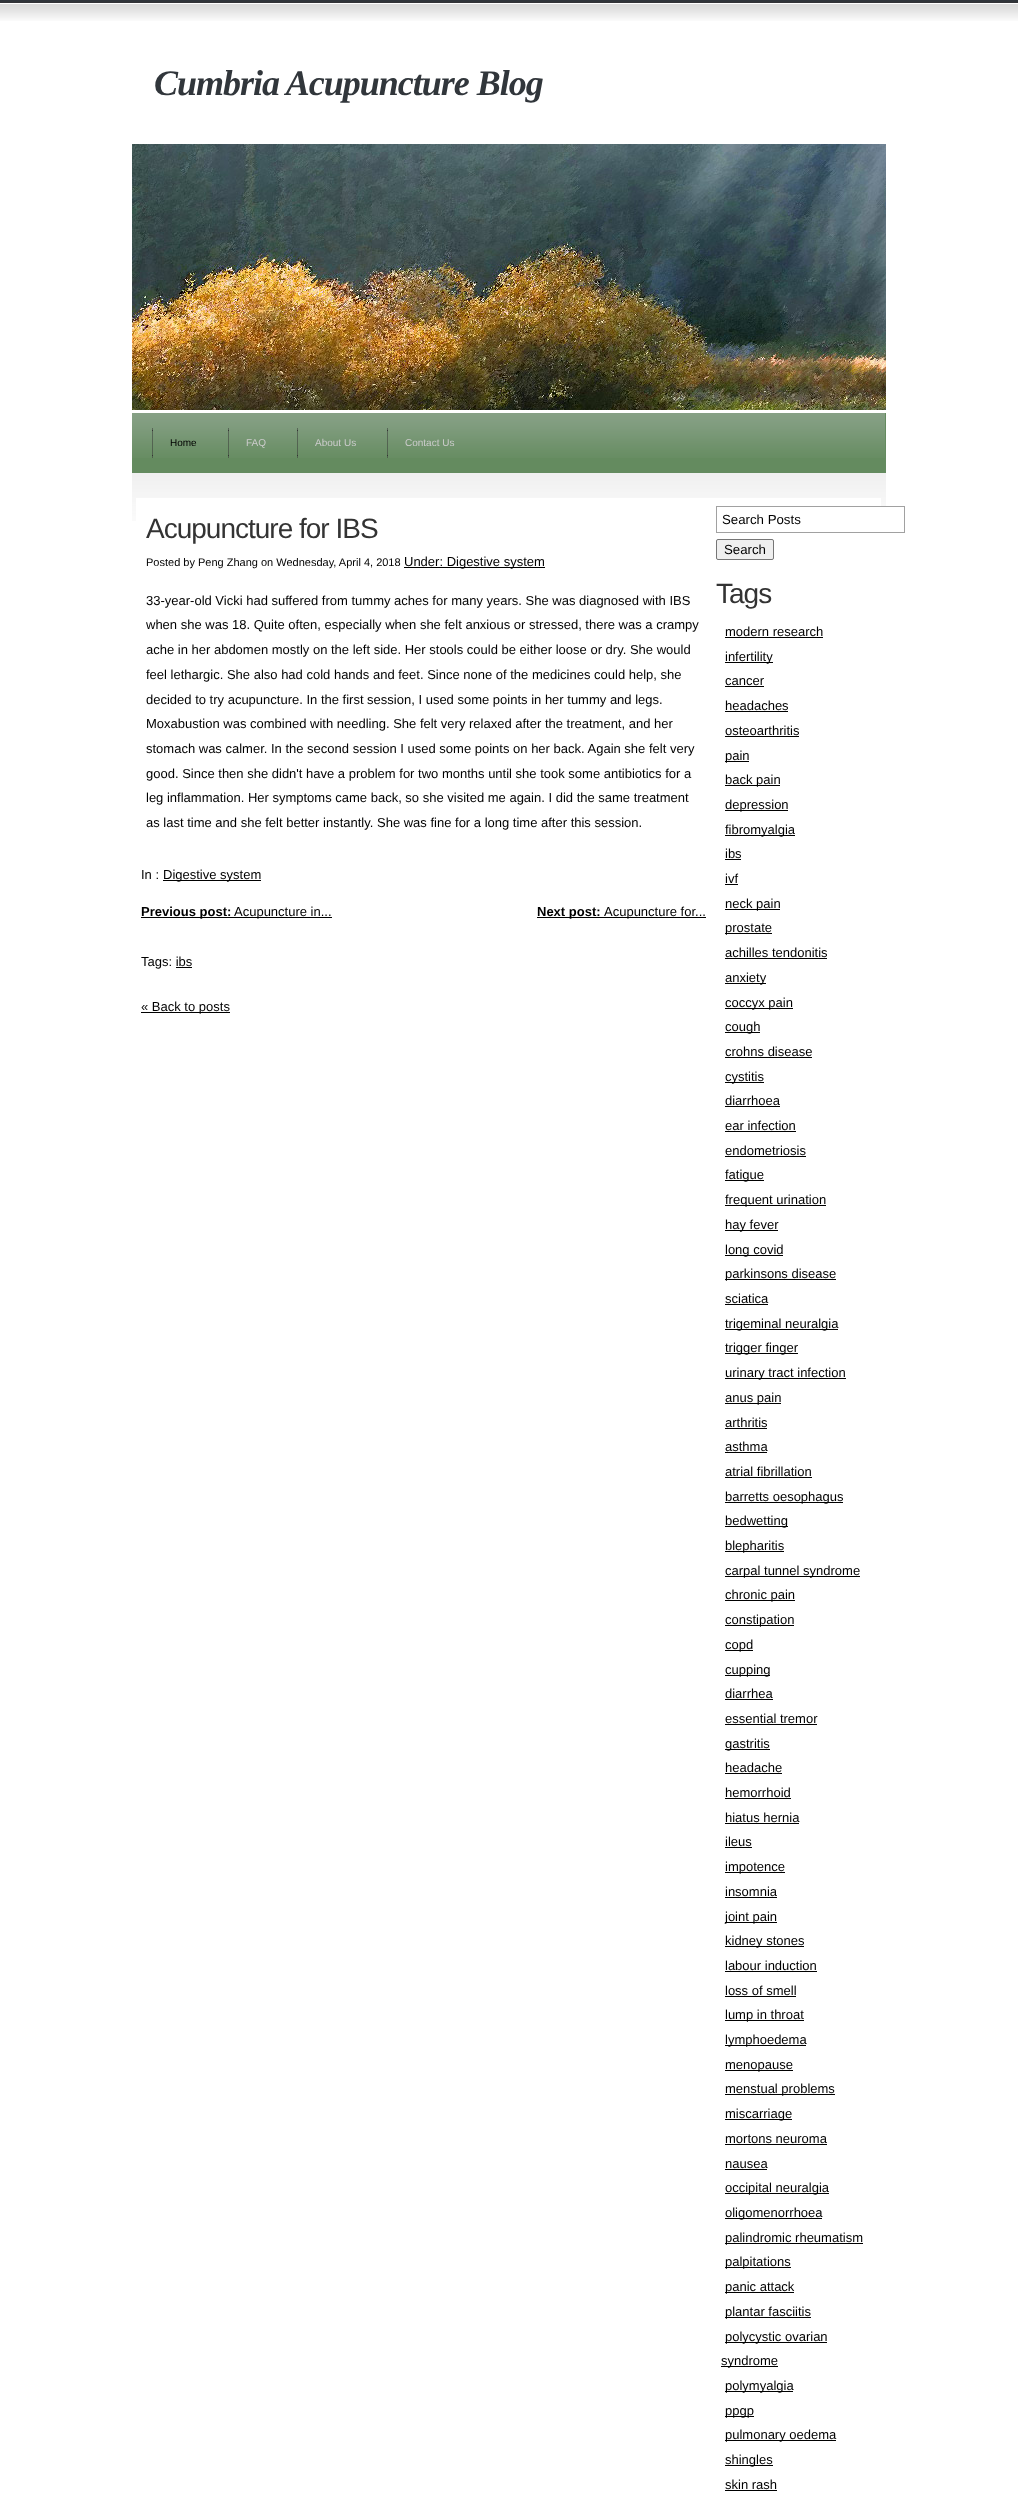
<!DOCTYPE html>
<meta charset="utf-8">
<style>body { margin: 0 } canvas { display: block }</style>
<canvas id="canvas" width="1018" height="2508"></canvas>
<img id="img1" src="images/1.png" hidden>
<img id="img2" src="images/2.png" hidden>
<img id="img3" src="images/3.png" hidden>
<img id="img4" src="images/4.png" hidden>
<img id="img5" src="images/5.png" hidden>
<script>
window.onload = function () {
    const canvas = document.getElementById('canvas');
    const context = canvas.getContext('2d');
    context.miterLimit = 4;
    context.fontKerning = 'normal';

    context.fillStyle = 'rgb(255, 255, 255)';
    context.fillRect(0, 0, 1018, 2508);
    context.drawImage(document.getElementById('img1'), 0, 0, 1018, 21);
    context.drawImage(document.getElementById('img2'), 132, 144, 754, 266);
    context.fillStyle = 'rgb(100, 139, 95)';
    context.fillRect(132, 413, 754, 60);
    context.drawImage(document.getElementById('img3'), 132, 413, 753, 45);
    context.drawImage(document.getElementById('img4'), 152, 428, 1, 30);
    context.drawImage(document.getElementById('img4'), 228, 428, 1, 30);
    context.drawImage(document.getElementById('img4'), 297, 428, 1, 30);
    context.drawImage(document.getElementById('img4'), 387, 428, 1, 30);
    context.drawImage(document.getElementById('img5'), 132, 473, 754, 48);
    context.fillStyle = 'rgb(255, 255, 255)';
    context.fillRect(136, 498, 745, 23);
    context.fillStyle = 'rgb(0, 0, 0)';
    context.fillRect(404, 567, 141, 1);
    context.fillRect(163, 880, 98, 1);
    context.fillRect(141, 917, 191, 1);
    context.fillRect(537, 917, 169, 1);
    context.fillRect(176, 967, 16, 1);
    context.fillRect(141, 1012, 89, 1);
    context.fillStyle = 'rgb(255, 255, 255)';
    context.fillRect(881, 507, 5, 14);
    context.strokeStyle = 'rgb(161, 161, 161)';
    context.strokeRect(716.5, 506.5, 188, 26);
    context.fillStyle = 'rgb(239, 239, 239)';
    context.beginPath();
    context.roundRect(716.5, 539.5, 57, 20, 1.5);
    context.fill();
    context.strokeStyle = 'rgb(118, 118, 118)';
    context.stroke();
    context.fillStyle = 'rgb(0, 0, 0)';
    context.fillRect(725, 637, 98, 1);
    context.fillRect(725, 662, 48, 1);
    context.fillRect(725, 686, 39, 1);
    context.fillRect(725, 711, 63, 1);
    context.fillRect(725, 736, 74, 1);
    context.fillRect(725, 761, 24, 1);
    context.fillRect(725, 785, 55, 1);
    context.fillRect(725, 810, 63, 1);
    context.fillRect(725, 835, 70, 1);
    context.fillRect(725, 859, 16, 1);
    context.fillRect(725, 884, 13, 1);
    context.fillRect(725, 909, 55, 1);
    context.fillRect(725, 933, 47, 1);
    context.fillRect(725, 958, 102, 1);
    context.fillRect(725, 983, 41, 1);
    context.fillRect(725, 1008, 68, 1);
    context.fillRect(725, 1032, 35, 1);
    context.fillRect(725, 1057, 87, 1);
    context.fillRect(725, 1082, 39, 1);
    context.fillRect(725, 1106, 55, 1);
    context.fillRect(725, 1131, 71, 1);
    context.fillRect(725, 1156, 81, 1);
    context.fillRect(725, 1180, 39, 1);
    context.fillRect(725, 1205, 101, 1);
    context.fillRect(725, 1230, 53, 1);
    context.fillRect(725, 1255, 58, 1);
    context.fillRect(725, 1279, 111, 1);
    context.fillRect(725, 1304, 43, 1);
    context.fillRect(725, 1329, 113, 1);
    context.fillRect(725, 1353, 73, 1);
    context.fillRect(725, 1378, 121, 1);
    context.fillRect(725, 1403, 56, 1);
    context.fillRect(725, 1428, 42, 1);
    context.fillRect(725, 1452, 42, 1);
    context.fillRect(725, 1477, 87, 1);
    context.fillRect(725, 1502, 118, 1);
    context.fillRect(725, 1526, 63, 1);
    context.fillRect(725, 1551, 59, 1);
    context.fillRect(725, 1576, 135, 1);
    context.fillRect(725, 1600, 70, 1);
    context.fillRect(725, 1625, 69, 1);
    context.fillRect(725, 1650, 28, 1);
    context.fillRect(725, 1675, 45, 1);
    context.fillRect(725, 1699, 48, 1);
    context.fillRect(725, 1724, 92, 1);
    context.fillRect(725, 1749, 45, 1);
    context.fillRect(725, 1773, 57, 1);
    context.fillRect(725, 1798, 66, 1);
    context.fillRect(725, 1823, 74, 1);
    context.fillRect(725, 1847, 27, 1);
    context.fillRect(725, 1872, 60, 1);
    context.fillRect(725, 1897, 52, 1);
    context.fillRect(725, 1922, 52, 1);
    context.fillRect(725, 1946, 79, 1);
    context.fillRect(725, 1971, 92, 1);
    context.fillRect(725, 1996, 71, 1);
    context.fillRect(725, 2020, 79, 1);
    context.fillRect(725, 2045, 81, 1);
    context.fillRect(725, 2070, 68, 1);
    context.fillRect(725, 2094, 110, 1);
    context.fillRect(725, 2119, 67, 1);
    context.fillRect(725, 2144, 102, 1);
    context.fillRect(725, 2169, 42, 1);
    context.fillRect(725, 2193, 104, 1);
    context.fillRect(725, 2218, 97, 1);
    context.fillRect(725, 2243, 138, 1);
    context.fillRect(725, 2267, 66, 1);
    context.fillRect(725, 2292, 69, 1);
    context.fillRect(725, 2317, 86, 1);
    context.fillRect(725, 2342, 102, 1);
    context.fillRect(721, 2366, 57, 1);
    context.fillRect(725, 2391, 68, 1);
    context.fillRect(725, 2416, 29, 1);
    context.fillRect(725, 2440, 111, 1);
    context.fillRect(725, 2465, 48, 1);
    context.fillRect(725, 2490, 52, 1);
    context.letterSpacing = '-1px';
    context.font = 'italic bold 36px Liberation Serif';
    context.fillStyle = 'rgb(49, 54, 59)';
    context.fillText('Cumbria Acupuncture Blog', 154, 95);
    context.letterSpacing = '0px';
    context.font = '10px Liberation Sans';
    context.fillStyle = 'rgb(0, 0, 0)';
    context.fillText('Home', 170, 446);
    context.fillStyle = 'rgb(204, 204, 204)';
    context.fillText('FAQ', 246, 446);
    context.fillText('About Us', 315, 446);
    context.fillText('Contact Us', 405, 446);
    context.letterSpacing = '-1px';
    context.font = '28px Liberation Sans';
    context.fillStyle = 'rgb(51, 51, 51)';
    context.fillText('Acupuncture for IBS', 146, 538);
    context.letterSpacing = '0px';
    context.font = '11px Liberation Sans';
    context.fillStyle = 'rgb(0, 0, 0)';
    context.fillText('Posted by Peng Zhang on Wednesday, April 4, 2018', 146, 566);
    context.font = '13px Liberation Sans';
    context.fillText('Under: Digestive system', 404, 566);
    context.fillText('33-year-old Vicki had suffered from tummy aches for many years. She was diagnosed with IBS', 146, 605);
    context.fillText('when she was 18. Quite often, especially when she felt anxious or stressed, there was a crampy', 146, 629);
    context.fillText('ache in her abdomen mostly on the left side. Her stools could be either loose or dry. She would', 146, 654);
    context.fillText('feel lethargic. She also had cold hands and feet. Since none of the medicines could help, she', 146, 679);
    context.fillText('decided to try acupuncture. In the first session, I used some points in her tummy and legs.', 146, 704);
    context.fillText('Moxabustion was combined with needling. She felt very relaxed after the treatment, and her', 146, 728);
    context.fillText('stomach was calmer. In the second session I used some points on her back. Again she felt very', 146, 753);
    context.fillText('good. Since then she didn\'t have a problem for two months until she took some antibiotics for a', 146, 778);
    context.fillText('leg inflammation. Her symptoms came back, so she visited me again. I did the same treatment', 146, 802);
    context.fillText('as last time and she felt better instantly. She was fine for a long time after this session.', 146, 827);
    context.fillText('In :', 141, 879);
    context.fillText('Digestive system', 163, 879);
    context.font = 'bold 13px Liberation Sans';
    context.fillText('Previous post:', 141, 916);
    context.font = '13px Liberation Sans';
    context.fillText('Acupuncture in...', 234, 916);
    context.font = 'bold 13px Liberation Sans';
    context.fillText('Next post:', 537, 916);
    context.font = '13px Liberation Sans';
    context.fillText('Acupuncture for...', 604, 916);
    context.fillText('Tags: ibs', 141, 966);
    context.fillText('« Back to posts', 141, 1011);
    context.font = '13.25px Liberation Sans';
    context.fillText('Search Posts', 722, 524);
    context.fillText('Search', 724, 554);
    context.letterSpacing = '-1px';
    context.font = '28px Liberation Sans';
    context.fillStyle = 'rgb(51, 51, 51)';
    context.fillText('Tags', 716, 603);
    context.letterSpacing = '0px';
    context.font = '13px Liberation Sans';
    context.fillStyle = 'rgb(0, 0, 0)';
    context.fillText('modern research', 725, 636);
    context.fillText('infertility', 725, 661);
    context.fillText('cancer', 725, 685);
    context.fillText('headaches', 725, 710);
    context.fillText('osteoarthritis', 725, 735);
    context.fillText('pain', 725, 760);
    context.fillText('back pain', 725, 784);
    context.fillText('depression', 725, 809);
    context.fillText('fibromyalgia', 725, 834);
    context.fillText('ibs', 725, 858);
    context.fillText('ivf', 725, 883);
    context.fillText('neck pain', 725, 908);
    context.fillText('prostate', 725, 932);
    context.fillText('achilles tendonitis', 725, 957);
    context.fillText('anxiety', 725, 982);
    context.fillText('coccyx pain', 725, 1007);
    context.fillText('cough', 725, 1031);
    context.fillText('crohns disease', 725, 1056);
    context.fillText('cystitis', 725, 1081);
    context.fillText('diarrhoea', 725, 1105);
    context.fillText('ear infection', 725, 1130);
    context.fillText('endometriosis', 725, 1155);
    context.fillText('fatigue', 725, 1179);
    context.fillText('frequent urination', 725, 1204);
    context.fillText('hay fever', 725, 1229);
    context.fillText('long covid', 725, 1254);
    context.fillText('parkinsons disease', 725, 1278);
    context.fillText('sciatica', 725, 1303);
    context.fillText('trigeminal neuralgia', 725, 1328);
    context.fillText('trigger finger', 725, 1352);
    context.fillText('urinary tract infection', 725, 1377);
    context.fillText('anus pain', 725, 1402);
    context.fillText('arthritis', 725, 1427);
    context.fillText('asthma', 725, 1451);
    context.fillText('atrial fibrillation', 725, 1476);
    context.fillText('barretts oesophagus', 725, 1501);
    context.fillText('bedwetting', 725, 1525);
    context.fillText('blepharitis', 725, 1550);
    context.fillText('carpal tunnel syndrome', 725, 1575);
    context.fillText('chronic pain', 725, 1599);
    context.fillText('constipation', 725, 1624);
    context.fillText('copd', 725, 1649);
    context.fillText('cupping', 725, 1674);
    context.fillText('diarrhea', 725, 1698);
    context.fillText('essential tremor', 725, 1723);
    context.fillText('gastritis', 725, 1748);
    context.fillText('headache', 725, 1772);
    context.fillText('hemorrhoid', 725, 1797);
    context.fillText('hiatus hernia', 725, 1822);
    context.fillText('ileus', 725, 1846);
    context.fillText('impotence', 725, 1871);
    context.fillText('insomnia', 725, 1896);
    context.fillText('joint pain', 725, 1921);
    context.fillText('kidney stones', 725, 1945);
    context.fillText('labour induction', 725, 1970);
    context.fillText('loss of smell', 725, 1995);
    context.fillText('lump in throat', 725, 2019);
    context.fillText('lymphoedema', 725, 2044);
    context.fillText('menopause', 725, 2069);
    context.fillText('menstual problems', 725, 2093);
    context.fillText('miscarriage', 725, 2118);
    context.fillText('mortons neuroma', 725, 2143);
    context.fillText('nausea', 725, 2168);
    context.fillText('occipital neuralgia', 725, 2192);
    context.fillText('oligomenorrhoea', 725, 2217);
    context.fillText('palindromic rheumatism', 725, 2242);
    context.fillText('palpitations', 725, 2266);
    context.fillText('panic attack', 725, 2291);
    context.fillText('plantar fasciitis', 725, 2316);
    context.fillText('polycystic ovarian', 725, 2341);
    context.fillText('syndrome', 721, 2365);
    context.fillText('polymyalgia', 725, 2390);
    context.fillText('ppgp', 725, 2415);
    context.fillText('pulmonary oedema', 725, 2439);
    context.fillText('shingles', 725, 2464);
    context.fillText('skin rash', 725, 2489);
};
</script>
